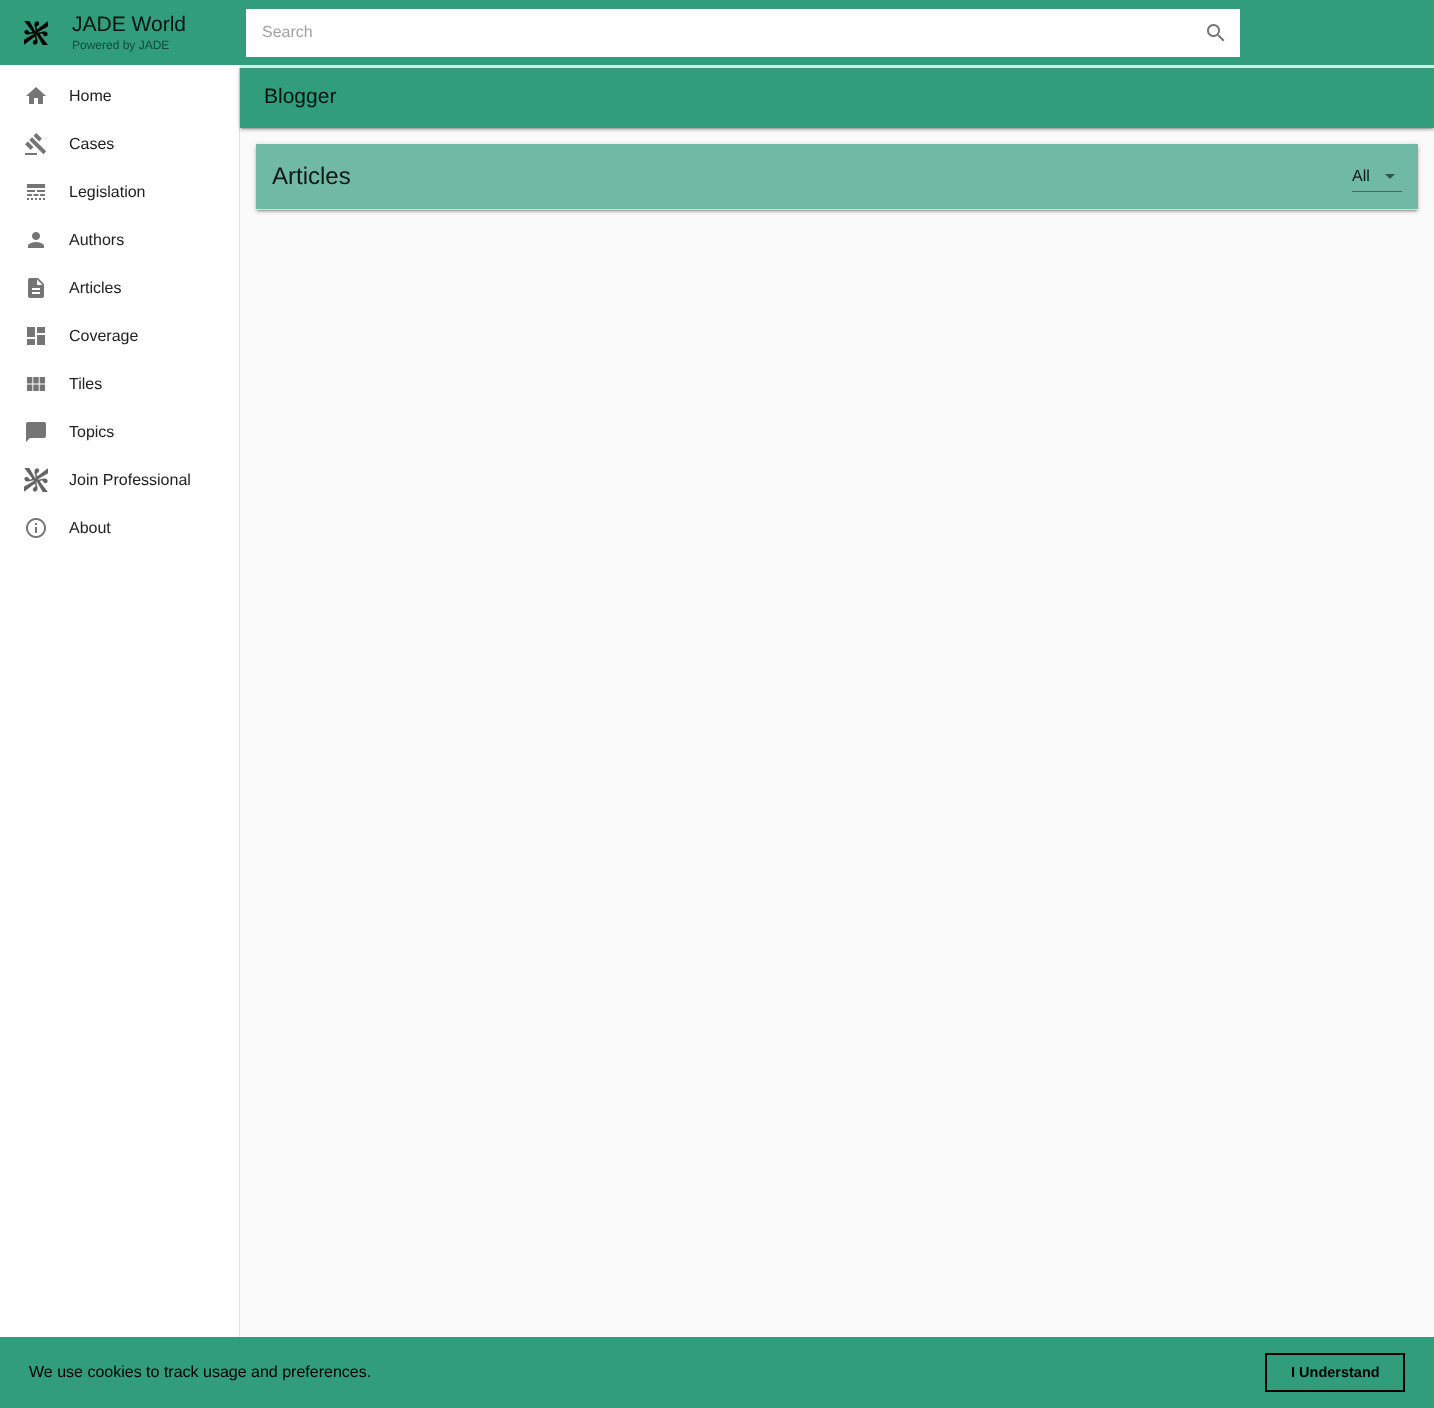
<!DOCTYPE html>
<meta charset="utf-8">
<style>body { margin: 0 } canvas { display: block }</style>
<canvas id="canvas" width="1434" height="1408"></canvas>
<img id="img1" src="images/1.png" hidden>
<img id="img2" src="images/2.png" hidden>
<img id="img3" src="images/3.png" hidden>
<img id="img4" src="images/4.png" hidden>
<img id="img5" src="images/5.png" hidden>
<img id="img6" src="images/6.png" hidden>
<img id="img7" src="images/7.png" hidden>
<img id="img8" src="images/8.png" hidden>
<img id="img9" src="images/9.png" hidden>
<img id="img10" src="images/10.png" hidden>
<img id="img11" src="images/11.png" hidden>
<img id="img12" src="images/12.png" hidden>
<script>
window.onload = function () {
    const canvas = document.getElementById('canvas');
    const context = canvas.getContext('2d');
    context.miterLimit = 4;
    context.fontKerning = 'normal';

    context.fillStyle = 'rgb(250, 250, 250)';
    context.fillRect(0, 0, 1434, 1408);
    context.fillStyle = 'rgb(255, 255, 255)';
    context.fillRect(0, 65, 239, 1272);
    context.fillStyle = 'rgb(224, 224, 224)';
    context.fillRect(239, 64, 1, 1273);
    context.fillStyle = 'rgba(0, 0, 0, 0.12)';
    context.filter = 'blur(0.5px)';
    context.beginPath();
    context.rect(242, 69, 1190, 60);
    context.fill();
    context.filter = 'none';
    context.fillStyle = 'rgba(0, 0, 0, 0.14)';
    context.filter = 'blur(1px)';
    context.beginPath();
    context.rect(240, 66, 1194, 64);
    context.fill();
    context.filter = 'none';
    context.fillStyle = 'rgba(0, 0, 0, 0.2)';
    context.filter = 'blur(2.5px)';
    context.beginPath();
    context.rect(240, 65, 1194, 64);
    context.fill();
    context.filter = 'none';
    context.fillStyle = 'rgb(50, 157, 123)';
    context.fillRect(240, 65, 1194, 63);
    context.fillStyle = 'rgba(255, 255, 255, 0.8)';
    context.beginPath();
    context.moveTo(-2, -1);
    context.lineTo(-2, 68);
    context.lineTo(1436, 68);
    context.lineTo(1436, -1);
    context.closePath();
    context.moveTo(0, 0);
    context.lineTo(0, 65);
    context.lineTo(1434, 65);
    context.lineTo(1434, 0);
    context.closePath();
    context.fill('evenodd');
    context.fillStyle = 'rgb(50, 157, 123)';
    context.fillRect(0, 0, 1434, 65);
    context.drawImage(document.getElementById('img1'), 24, 21, 24, 24);
    context.fillStyle = 'rgb(255, 255, 255)';
    context.fillRect(246, 9, 994, 48);
    context.drawImage(document.getElementById('img2'), 1207, 24, 18, 18);
    context.drawImage(document.getElementById('img3'), 26, 87, 20, 17);
    context.drawImage(document.getElementById('img4'), 25, 133, 22, 22);
    context.drawImage(document.getElementById('img5'), 27, 184, 18, 16);
    context.drawImage(document.getElementById('img6'), 28, 232, 16, 16);
    context.drawImage(document.getElementById('img7'), 28, 278, 16, 20);
    context.drawImage(document.getElementById('img8'), 27, 327, 18, 18);
    context.drawImage(document.getElementById('img9'), 27, 377, 18, 14);
    context.drawImage(document.getElementById('img10'), 26, 422, 20, 20);
    context.drawImage(document.getElementById('img11'), 24, 468, 24, 24);
    context.drawImage(document.getElementById('img12'), 26, 518, 20, 20);
    context.fillStyle = 'rgba(0, 0, 0, 0.12)';
    context.filter = 'blur(0.5px)';
    context.beginPath();
    context.rect(258, 149, 1158, 62);
    context.fill();
    context.filter = 'none';
    context.fillStyle = 'rgba(0, 0, 0, 0.14)';
    context.filter = 'blur(1px)';
    context.beginPath();
    context.roundRect(256, 146, 1162, 66, 2);
    context.fill();
    context.filter = 'none';
    context.fillStyle = 'rgba(0, 0, 0, 0.2)';
    context.filter = 'blur(2.5px)';
    context.beginPath();
    context.roundRect(256, 145, 1162, 66, 2);
    context.fill();
    context.filter = 'none';
    context.fillStyle = 'rgb(112, 186, 163)';
    context.fillRect(256, 144, 1162, 65);
    context.fillStyle = 'rgb(222, 222, 222)';
    context.fillRect(256, 209, 1162, 1);
    context.fillStyle = 'rgb(52, 86, 75)';
    context.beginPath();
    context.moveTo(1385, 174);
    context.lineTo(1390, 179);
    context.lineTo(1395, 174);
    context.closePath();
    context.fill();
    context.fillStyle = 'rgb(65, 108, 95)';
    context.fillRect(1352, 191, 50, 1);
    context.fillStyle = 'rgb(50, 157, 123)';
    context.fillRect(0, 1337, 1434, 71);
    context.strokeStyle = 'rgb(0, 0, 0)';
    context.lineWidth = 2;
    context.strokeRect(1266, 1354, 138, 37);
    context.font = '21px Liberation Sans';
    context.fillStyle = 'rgb(7, 20, 16)';
    context.fillText('JADE World', 72, 31);
    context.font = '12px Liberation Sans';
    context.fillStyle = 'rgb(23, 72, 57)';
    context.fillText('Powered by JADE', 72, 49);
    context.font = '16px Liberation Sans';
    context.fillStyle = 'rgb(162, 162, 162)';
    context.fillText('Search', 262, 37);
    context.fillStyle = 'rgb(33, 33, 33)';
    context.fillText('Home', 69, 101);
    context.fillText('Cases', 69, 149);
    context.fillText('Legislation', 69, 197);
    context.fillText('Authors', 69, 245);
    context.fillText('Articles', 69, 293);
    context.fillText('Coverage', 69, 341);
    context.fillText('Tiles', 69, 389);
    context.fillText('Topics', 69, 437);
    context.fillText('Join Professional', 69, 485);
    context.fillText('About', 69, 533);
    context.font = '21px Liberation Sans';
    context.fillStyle = 'rgb(7, 20, 16)';
    context.fillText('Blogger', 264, 103);
    context.font = '24px Liberation Sans';
    context.fillStyle = 'rgb(15, 24, 21)';
    context.fillText('Articles', 272, 184);
    context.font = '16px Liberation Sans';
    context.fillText('All', 1352, 181);
    context.fillStyle = 'rgb(0, 0, 0)';
    context.fillText('We use cookies to track usage and preferences.', 29, 1377);
    context.font = 'bold 14.5px Liberation Sans';
    context.fillText('I Understand', 1291, 1377);
};
</script>
